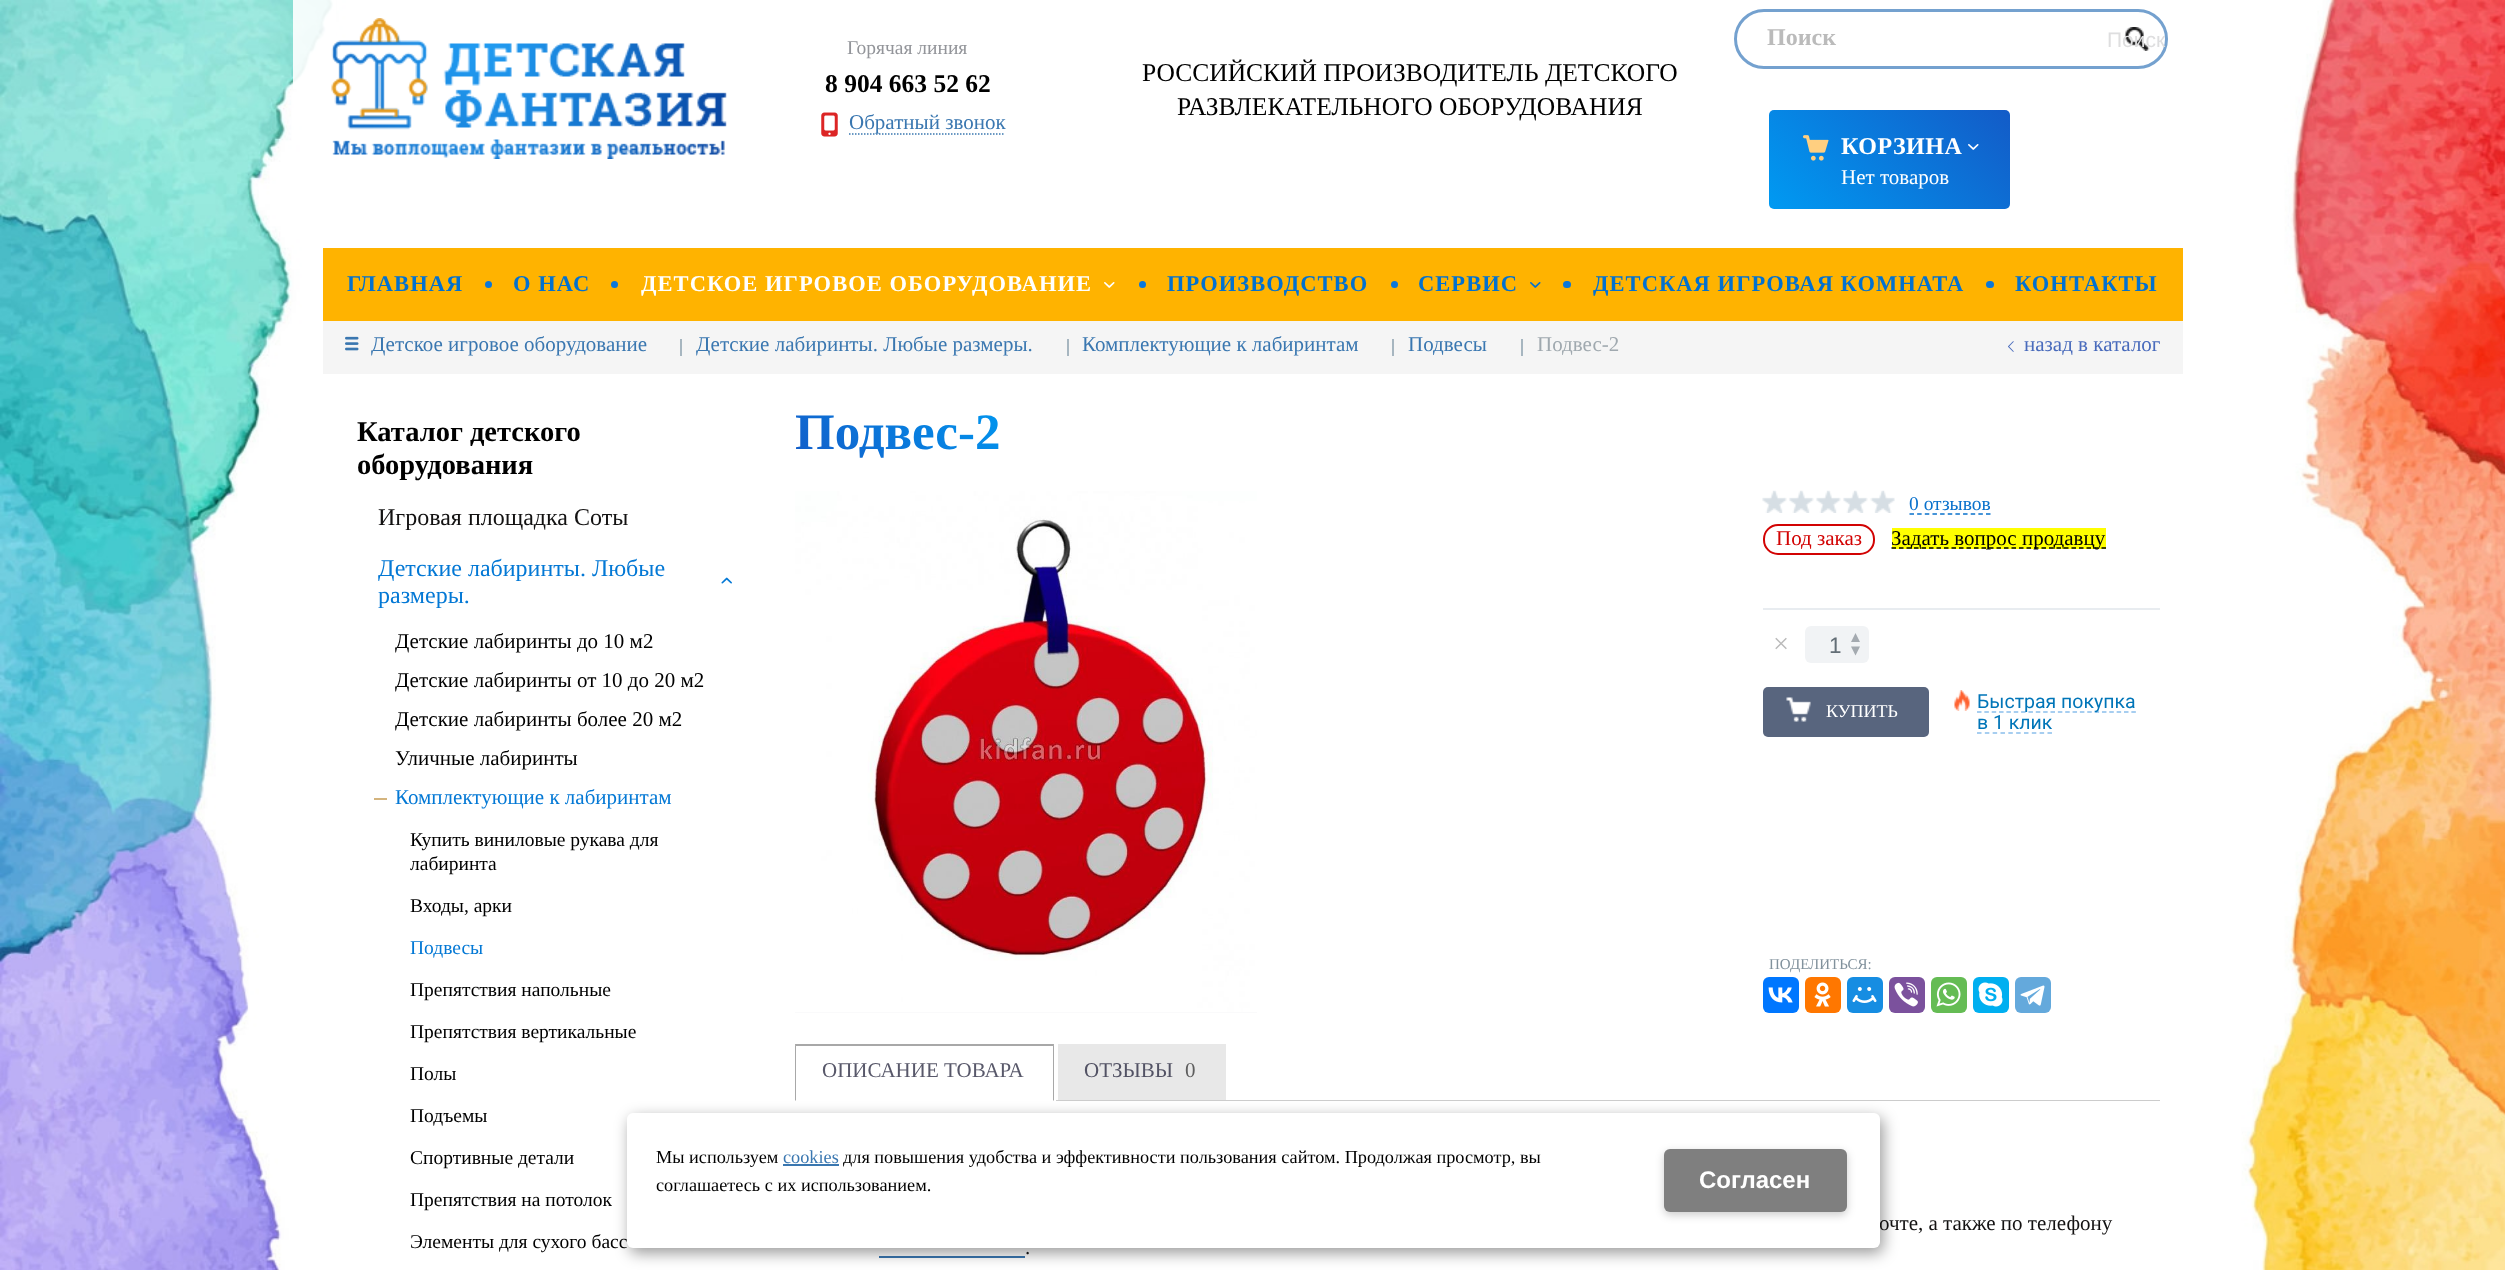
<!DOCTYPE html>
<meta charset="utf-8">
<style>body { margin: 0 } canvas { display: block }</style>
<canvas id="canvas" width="2505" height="1270"></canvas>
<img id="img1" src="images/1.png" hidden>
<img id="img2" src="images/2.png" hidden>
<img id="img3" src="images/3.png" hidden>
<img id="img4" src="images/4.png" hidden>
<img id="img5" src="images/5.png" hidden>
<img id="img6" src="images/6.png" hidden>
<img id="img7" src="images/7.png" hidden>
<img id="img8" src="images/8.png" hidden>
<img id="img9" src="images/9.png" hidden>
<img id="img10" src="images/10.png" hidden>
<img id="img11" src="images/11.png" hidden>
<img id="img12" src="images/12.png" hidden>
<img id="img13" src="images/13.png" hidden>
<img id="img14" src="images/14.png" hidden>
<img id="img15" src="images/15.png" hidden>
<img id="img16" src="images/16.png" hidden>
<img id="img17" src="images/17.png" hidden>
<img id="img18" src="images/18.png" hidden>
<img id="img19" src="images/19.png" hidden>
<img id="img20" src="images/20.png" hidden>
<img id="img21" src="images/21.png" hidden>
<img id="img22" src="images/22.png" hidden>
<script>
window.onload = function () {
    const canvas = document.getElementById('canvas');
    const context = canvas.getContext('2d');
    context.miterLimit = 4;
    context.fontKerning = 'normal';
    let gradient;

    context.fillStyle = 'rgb(255, 255, 255)';
    context.fillRect(0, 0, 2505, 1270);
    context.drawImage(document.getElementById('img1'), 0, 0, 2505, 1270);
    context.fillStyle = 'rgba(255, 255, 255, 0.9)';
    context.fillRect(293, 0, 43, 89);
    context.drawImage(document.getElementById('img2'), 331, 18, 396, 141);
    context.beginPath();
    context.roundRect(1735.5, 10.5, 431, 57, 28.5);
    context.strokeStyle = 'rgb(116, 161, 207)';
    context.lineWidth = 3;
    context.stroke();
    context.drawImage(document.getElementById('img3'), 2124, 27, 26, 24);
    context.drawImage(document.getElementById('img4'), 821, 112, 17, 25);
    context.beginPath();
    context.moveTo(849, 134);
    context.lineTo(1005, 134);
    context.strokeStyle = 'rgb(58, 119, 176)';
    context.lineWidth = 1.5;
    context.setLineDash([1.5, 1.5]);
    context.stroke();
    gradient = context.createLinearGradient(1804, 244, 1974, 74);
    gradient.addColorStop(0, 'rgb(0, 154, 242)');
    gradient.addColorStop(1, 'rgb(19, 91, 199)');
    context.fillStyle = gradient;
    context.beginPath();
    context.roundRect(1769, 110, 241, 99, 5);
    context.fill();
    context.drawImage(document.getElementById('img5'), 1803, 135, 26, 26);
    context.drawImage(document.getElementById('img6'), 1968, 144, 11, 6);
    context.fillStyle = 'rgb(255, 179, 0)';
    context.fillRect(323, 248, 1860, 73);
    context.fillStyle = 'rgb(10, 119, 218)';
    context.beginPath();
    context.arc(488.5, 284.5, 3.5, 0, 2 * Math.PI);
    context.fill();
    context.beginPath();
    context.arc(614.5, 284.5, 3.5, 0, 2 * Math.PI);
    context.fill();
    context.drawImage(document.getElementById('img7'), 1104, 282, 11, 6);
    context.beginPath();
    context.arc(1142.5, 284.5, 3.5, 0, 2 * Math.PI);
    context.fill();
    context.beginPath();
    context.arc(1394.5, 284.5, 3.5, 0, 2 * Math.PI);
    context.fill();
    context.drawImage(document.getElementById('img8'), 1530, 282, 11, 6);
    context.beginPath();
    context.roundRect(1563, 281, 8, 7, 3.5);
    context.fill();
    context.beginPath();
    context.roundRect(1986, 281, 8, 7, 3.5);
    context.fill();
    context.fillStyle = 'rgb(245, 245, 245)';
    context.fillRect(323, 321, 1860, 53);
    context.drawImage(document.getElementById('img9'), 345, 336, 14, 15);
    context.fillStyle = 'rgb(167, 182, 192)';
    context.fillRect(680, 339, 2, 17);
    context.fillRect(1067, 339, 2, 17);
    context.fillRect(1392, 339, 2, 17);
    context.fillRect(1521, 339, 2, 17);
    context.drawImage(document.getElementById('img10'), 2008, 341, 6, 11);
    context.drawImage(document.getElementById('img11'), 721, 577, 11, 7);
    context.fillStyle = 'rgb(212, 180, 126)';
    context.fillRect(374, 798, 13, 2);
    context.fillStyle = 'rgb(250, 250, 251)';
    context.fillRect(795, 1012, 462, 1);
    context.drawImage(document.getElementById('img12'), 795, 491, 462, 521);
    context.drawImage(document.getElementById('img13'), 1762, 490, 133, 23);
    context.beginPath();
    context.moveTo(1909.5, 514);
    context.lineTo(1990.5, 514);
    context.strokeStyle = 'rgb(9, 113, 204)';
    context.setLineDash([4.5, 3.15]);
    context.stroke();
    context.beginPath();
    context.roundRect(1764, 525, 110, 29, 14);
    context.strokeStyle = 'rgb(210, 3, 3)';
    context.lineWidth = 2;
    context.setLineDash([]);
    context.stroke();
    context.fillStyle = 'rgb(255, 255, 0)';
    context.fillRect(1892, 528, 214, 21);
    context.beginPath();
    context.moveTo(1891.5, 548);
    context.lineTo(2106, 548);
    context.strokeStyle = 'rgb(0, 0, 0)';
    context.lineWidth = 1.5;
    context.setLineDash([4.5, 3]);
    context.stroke();
    context.fillStyle = 'rgb(232, 236, 240)';
    context.fillRect(1763, 608, 397, 2);
    context.fillStyle = 'rgb(241, 243, 245)';
    context.beginPath();
    context.roundRect(1805, 626, 64, 37, 6);
    context.fill();
    context.fillStyle = 'rgb(164, 170, 176)';
    context.beginPath();
    context.moveTo(1860, 642);
    context.lineTo(1851, 642);
    context.lineTo(1855.5, 633);
    context.closePath();
    context.moveTo(1851, 646.5);
    context.lineTo(1860, 646.5);
    context.lineTo(1855.5, 655.5);
    context.closePath();
    context.fill();
    context.fillStyle = 'rgb(88, 101, 126)';
    context.beginPath();
    context.roundRect(1763, 687, 166, 50, 5);
    context.fill();
    context.drawImage(document.getElementById('img14'), 1786, 697, 25, 25);
    context.drawImage(document.getElementById('img15'), 1954, 690, 16, 21);
    context.beginPath();
    context.moveTo(1977, 712);
    context.lineTo(2136, 712);
    context.strokeStyle = 'rgb(138, 190, 235)';
    context.setLineDash([4.5, 2.85]);
    context.stroke();
    context.beginPath();
    context.moveTo(1977, 733);
    context.lineTo(2052, 733);
    context.setLineDash([4.5, 3.33]);
    context.stroke();
    context.fillStyle = 'rgb(0, 119, 255)';
    context.beginPath();
    context.roundRect(1763, 977, 36, 36, 6);
    context.fill();
    context.drawImage(document.getElementById('img16'), 1768, 987, 25, 16);
    context.fillStyle = 'rgb(255, 119, 0)';
    context.beginPath();
    context.roundRect(1805, 977, 36, 36, 6);
    context.fill();
    context.drawImage(document.getElementById('img17'), 1814, 982, 17, 25);
    context.fillStyle = 'rgb(22, 141, 226)';
    context.beginPath();
    context.roundRect(1847, 977, 36, 36, 6);
    context.fill();
    context.drawImage(document.getElementById('img18'), 1852, 987, 25, 16);
    context.fillStyle = 'rgb(123, 81, 157)';
    context.beginPath();
    context.roundRect(1889, 977, 36, 36, 6);
    context.fill();
    context.drawImage(document.getElementById('img19'), 1894, 982, 24, 25);
    context.fillStyle = 'rgb(101, 188, 84)';
    context.beginPath();
    context.roundRect(1931, 977, 36, 36, 6);
    context.fill();
    context.drawImage(document.getElementById('img20'), 1936, 982, 25, 25);
    context.fillStyle = 'rgb(0, 175, 240)';
    context.beginPath();
    context.roundRect(1973, 977, 36, 36, 6);
    context.fill();
    context.drawImage(document.getElementById('img21'), 1978, 982, 25, 25);
    context.fillStyle = 'rgb(100, 169, 220)';
    context.beginPath();
    context.roundRect(2015, 977, 36, 36, 6);
    context.fill();
    context.drawImage(document.getElementById('img22'), 2020, 985, 25, 21);
    context.fillStyle = 'rgb(168, 168, 168)';
    context.beginPath();
    context.moveTo(795, 1044);
    context.lineTo(1054, 1044);
    context.lineTo(1053, 1046);
    context.lineTo(796, 1046);
    context.closePath();
    context.fill();
    context.fillStyle = 'rgba(0, 0, 0, 0.34)';
    context.beginPath();
    context.moveTo(1054, 1044);
    context.lineTo(1054, 1101);
    context.lineTo(1053, 1100);
    context.lineTo(1053, 1046);
    context.closePath();
    context.fill();
    context.beginPath();
    context.moveTo(795, 1101);
    context.lineTo(795, 1044);
    context.lineTo(796, 1046);
    context.lineTo(796, 1100);
    context.closePath();
    context.fill();
    context.fillStyle = 'rgb(204, 204, 204)';
    context.fillRect(1056, 1100, 1104, 1);
    context.fillStyle = 'rgb(232, 232, 232)';
    context.fillRect(1058, 1044, 168, 56);
    context.fillStyle = 'rgb(58, 119, 176)';
    context.fillRect(879, 1256, 146, 2);
    context.fillStyle = 'rgba(0, 0, 0, 0.4)';
    context.filter = 'blur(7.5px)';
    context.beginPath();
    context.roundRect(630, 1118, 1253, 135, 6);
    context.fill();
    context.filter = 'none';
    context.font = 'bold 24px Liberation Serif';
    context.fillStyle = 'rgb(187, 187, 187)';
    context.fillText('Поиск', 1767, 45);
    context.font = '21px Liberation Sans';
    context.fillStyle = 'rgb(222, 222, 223)';
    context.fillText('Поиск', 2107, 47);
    context.font = '19.5px Liberation Serif';
    context.fillStyle = 'rgb(147, 149, 154)';
    context.fillText('Горячая линия', 847, 54);
    context.font = 'bold 25.5px Liberation Serif';
    context.fillStyle = 'rgb(0, 0, 0)';
    context.fillText('8 904 663 52 62', 825, 92);
    context.font = '21px Liberation Serif';
    context.fillStyle = 'rgb(58, 119, 176)';
    context.fillText('Обратный звонок', 849, 129);
    context.font = '25.5px Liberation Serif';
    context.fillStyle = 'rgb(0, 0, 0)';
    context.fillText('РОССИЙСКИЙ ПРОИЗВОДИТЕЛЬ ДЕТСКОГО', 1142, 81);
    context.fillText('РАЗВЛЕКАТЕЛЬНОГО ОБОРУДОВАНИЯ', 1177, 115);
    context.letterSpacing = '0.5px';
    context.font = 'bold 24px Liberation Serif';
    context.fillStyle = 'rgb(255, 255, 255)';
    context.fillText('КОРЗИНА', 1841, 154);
    context.letterSpacing = '0px';
    context.font = '21px Liberation Serif';
    context.fillText('Нет товаров', 1841, 184);
    context.letterSpacing = '1.05px';
    context.font = 'bold 22.5px Liberation Serif';
    context.fillStyle = 'rgb(2, 113, 208)';
    context.fillText('ГЛАВНАЯ', 347, 291);
    context.fillText('О НАС', 513, 291);
    context.fillStyle = 'rgb(255, 255, 255)';
    context.fillText('ДЕТСКОЕ ИГРОВОЕ ОБОРУДОВАНИЕ', 641, 291);
    context.fillStyle = 'rgb(2, 113, 208)';
    context.fillText('ПРОИЗВОДСТВО', 1167, 291);
    context.fillText('СЕРВИС', 1418, 291);
    context.fillText('ДЕТСКАЯ ИГРОВАЯ КОМНАТА', 1593, 291);
    context.fillText('КОНТАКТЫ', 2015, 291);
    context.letterSpacing = '0px';
    context.font = '21px Liberation Serif';
    context.fillStyle = 'rgb(58, 119, 176)';
    context.fillText('Детское игровое оборудование', 371, 351);
    context.fillText('Детские лабиринты. Любые размеры.', 696, 351);
    context.fillText('Комплектующие к лабиринтам', 1082, 351);
    context.fillText('Подвесы', 1408, 351);
    context.fillStyle = 'rgb(160, 169, 175)';
    context.fillText('Подвес-2', 1537, 351);
    context.fillStyle = 'rgb(73, 107, 188)';
    context.fillText('назад в каталог', 2024, 351);
    context.font = 'bold 28.5px Liberation Serif';
    context.fillStyle = 'rgb(0, 0, 0)';
    context.fillText('Каталог детского', 357, 441);
    context.fillText('оборудования', 357, 474);
    context.font = '24px Liberation Serif';
    context.fillStyle = 'rgb(19, 18, 18)';
    context.fillText('Игровая площадка Соты', 378, 525);
    context.fillStyle = 'rgb(3, 120, 213)';
    context.fillText('Детские лабиринты. Любые', 378, 576);
    context.fillText('размеры.', 378, 603);
    context.font = '21px Liberation Serif';
    context.fillStyle = 'rgb(0, 0, 0)';
    context.fillText('Детские лабиринты до 10 м2', 395, 648);
    context.fillText('Детские лабиринты от 10 до 20 м2', 395, 687);
    context.fillText('Детские лабиринты более 20 м2', 395, 726);
    context.fillText('Уличные лабиринты', 395, 765);
    context.fillStyle = 'rgb(3, 120, 213)';
    context.fillText('Комплектующие к лабиринтам', 395, 804);
    context.font = '19.5px Liberation Serif';
    context.fillStyle = 'rgb(0, 0, 0)';
    context.fillText('Купить виниловые рукава для', 410, 846);
    context.fillText('лабиринта', 410, 870);
    context.fillText('Входы, арки', 410, 912);
    context.fillStyle = 'rgb(3, 120, 213)';
    context.fillText('Подвесы', 410, 954);
    context.fillStyle = 'rgb(0, 0, 0)';
    context.fillText('Препятствия напольные', 410, 996);
    context.fillText('Препятствия вертикальные', 410, 1038);
    context.fillText('Полы', 410, 1080);
    context.fillText('Подъемы', 410, 1122);
    context.fillText('Спортивные детали', 410, 1164);
    context.fillText('Препятствия на потолок', 410, 1206);
    context.fillText('Элементы для сухого басс', 410, 1248);
    context.font = 'bold 51px Liberation Serif';
    gradient = context.createLinearGradient(832, 498, 963, 366);
    gradient.addColorStop(0, 'rgb(19, 92, 200)');
    gradient.addColorStop(1, 'rgb(0, 151, 240)');
    context.fillStyle = gradient;
    context.fillText('Подвес-2', 795, 449);
    context.font = '19.5px Liberation Serif';
    context.fillStyle = 'rgb(9, 113, 204)';
    context.fillText('0 отзывов', 1909, 510);
    context.font = '21px Liberation Serif';
    context.fillStyle = 'rgb(210, 3, 3)';
    context.fillText('Под заказ', 1776, 545);
    context.fillStyle = 'rgb(0, 0, 0)';
    context.fillText('Задать вопрос продавцу', 1891, 545);
    context.font = '28.5px Liberation Serif';
    context.fillStyle = 'rgb(187, 187, 187)';
    context.fillText('×', 1773, 653);
    context.font = '22.5px Liberation Sans';
    context.fillStyle = 'rgb(99, 110, 118)';
    context.fillText('1', 1829, 653);
    context.font = '18px Liberation Serif';
    context.fillStyle = 'rgb(255, 255, 255)';
    context.fillText('КУПИТЬ', 1826, 717);
    context.font = '19.5px Roboto';
    context.fillStyle = 'rgb(0, 117, 184)';
    context.fillText('Быстрая покупка', 1977, 708);
    context.fillText('в 1 клик', 1977, 729);
    context.font = '15px Liberation Serif';
    context.fillStyle = 'rgb(129, 145, 156)';
    context.fillText('ПОДЕЛИТЬСЯ:', 1769, 969);
    context.font = '21px Liberation Serif';
    context.fillStyle = 'rgb(88, 88, 106)';
    context.fillText('ОПИСАНИЕ ТОВАРА', 822, 1077);
    context.fillStyle = 'rgb(82, 82, 100)';
    context.fillText('ОТЗЫВЫ', 1084, 1077);
    context.fillStyle = 'rgb(94, 94, 94)';
    context.fillText('0', 1185, 1077);
    context.fillStyle = 'rgb(19, 18, 18)';
    context.fillText('очте, а также по телефону', 1879, 1230);
    context.fillText('.', 1025, 1254);
    context.fillStyle = 'rgb(255, 255, 255)';
    context.beginPath();
    context.roundRect(627, 1113, 1253, 135, 6);
    context.fill();
    context.font = '18.25px Liberation Serif';
    context.fillStyle = 'rgb(0, 0, 0)';
    context.fillText('Мы используем', 656, 1163);
    context.fillStyle = 'rgb(58, 119, 176)';
    context.fillText('cookies', 783, 1163);
    context.fillRect(783, 1164, 56, 2);
    context.fillStyle = 'rgb(0, 0, 0)';
    context.fillText('для повышения удобства и эффективности пользования сайтом. Продолжая просмотр, вы', 843, 1163);
    context.fillText('соглашаетесь с их использованием.', 656, 1191);
    context.fillStyle = 'rgba(0, 0, 0, 0.2)';
    context.filter = 'blur(4px)';
    context.beginPath();
    context.roundRect(1664, 1152, 183, 63, 6);
    context.fill();
    context.filter = 'none';
    context.fillStyle = 'rgb(127, 127, 127)';
    context.beginPath();
    context.roundRect(1664, 1149, 183, 63, 6);
    context.fill();
    context.font = 'bold 24px Liberation Sans';
    context.fillStyle = 'rgb(255, 255, 255)';
    context.fillText('Cогласен', 1699, 1188);
};
</script>
